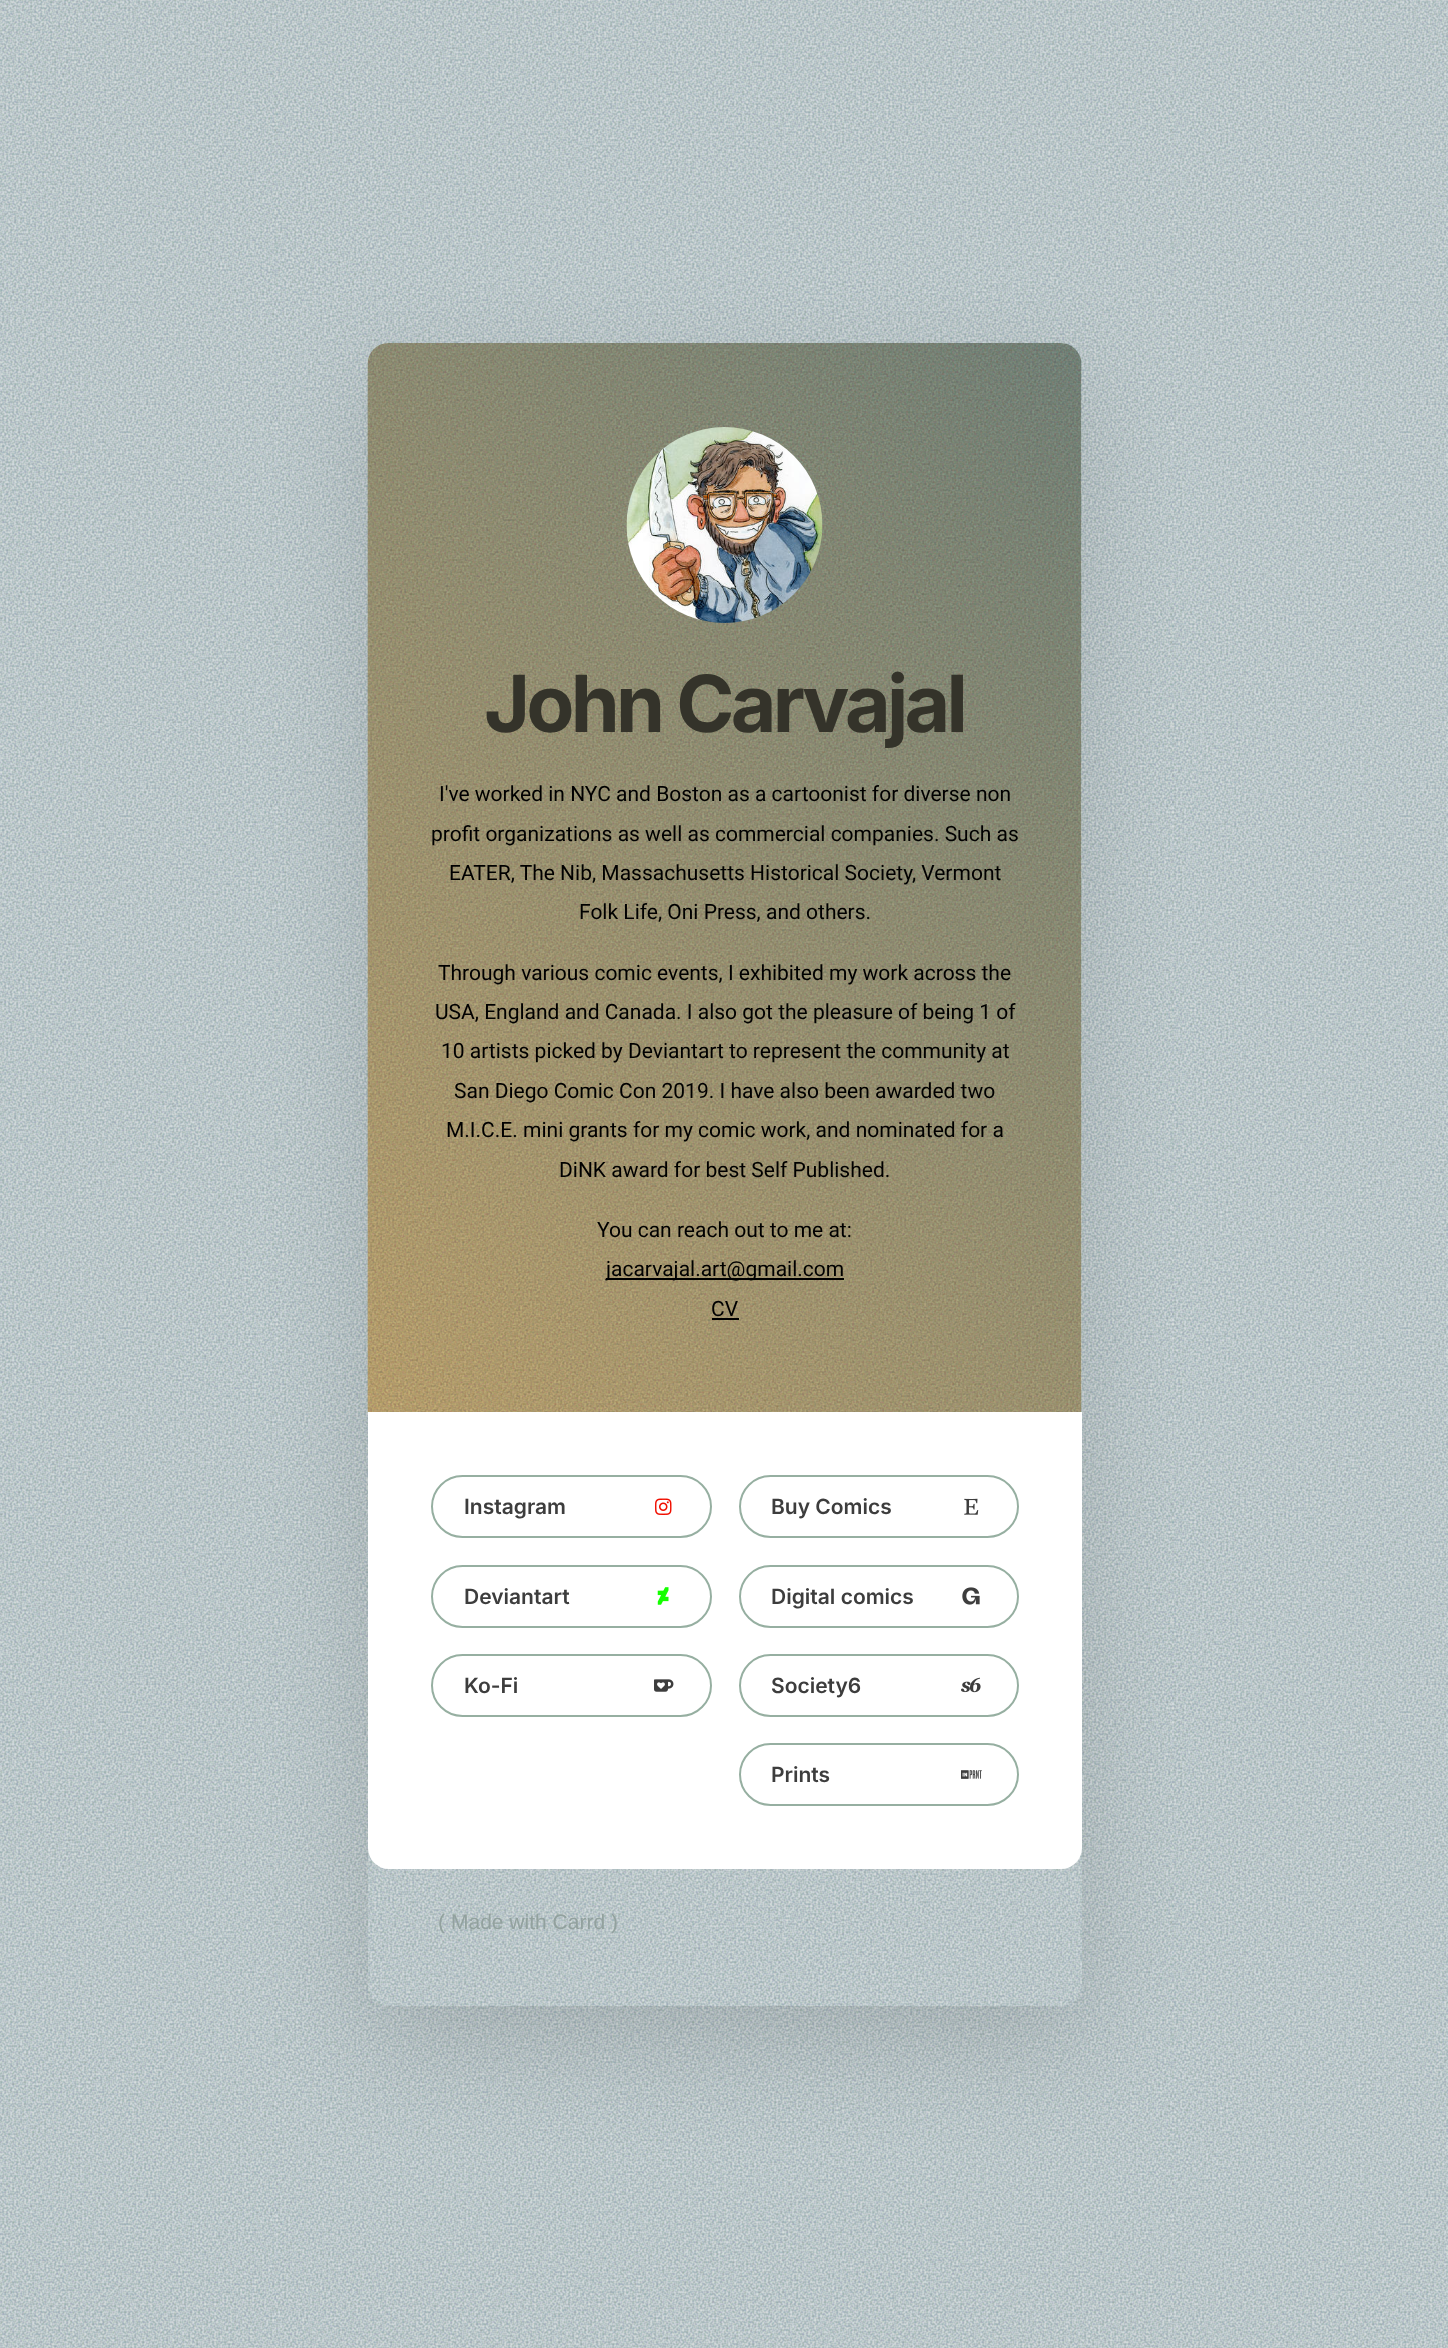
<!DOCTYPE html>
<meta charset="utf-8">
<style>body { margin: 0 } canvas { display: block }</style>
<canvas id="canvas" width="1448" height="2348"></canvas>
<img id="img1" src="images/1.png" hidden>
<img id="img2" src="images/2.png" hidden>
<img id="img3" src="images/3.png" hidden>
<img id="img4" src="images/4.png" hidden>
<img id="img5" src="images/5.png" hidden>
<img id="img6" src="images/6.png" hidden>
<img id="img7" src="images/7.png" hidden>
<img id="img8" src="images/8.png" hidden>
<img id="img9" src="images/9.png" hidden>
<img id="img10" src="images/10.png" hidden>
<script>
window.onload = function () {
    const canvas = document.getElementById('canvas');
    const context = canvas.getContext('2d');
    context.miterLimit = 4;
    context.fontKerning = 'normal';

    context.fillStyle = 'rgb(240, 242, 241)';
    context.fillRect(0, 0, 1448, 2348);
    context.drawImage(document.getElementById('img1'), 0, 0, 1448, 2348);
    context.save();
    context.beginPath();
    context.moveTo(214, 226);
    context.lineTo(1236, 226);
    context.lineTo(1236, 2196);
    context.lineTo(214, 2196);
    context.closePath();
    context.moveTo(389, 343);
    context.lineTo(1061, 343);
    context.bezierCurveTo(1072.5, 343, 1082, 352.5, 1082, 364);
    context.lineTo(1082, 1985);
    context.bezierCurveTo(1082, 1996.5, 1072.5, 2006, 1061, 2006);
    context.lineTo(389, 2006);
    context.bezierCurveTo(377.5, 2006, 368, 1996.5, 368, 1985);
    context.lineTo(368, 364);
    context.bezierCurveTo(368, 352.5, 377.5, 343, 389, 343);
    context.closePath();
    context.clip('evenodd');
    context.fillStyle = 'rgba(0, 0, 0, 0.12)';
    context.filter = 'blur(51px)';
    context.beginPath();
    context.roundRect(368, 380, 714, 1662, 21);
    context.fill();
    context.filter = 'none';
    context.restore();
    context.drawImage(document.getElementById('img2'), 367, 343, 715, 1069);
    context.drawImage(document.getElementById('img3'), 626, 427, 197, 196);
    context.fillStyle = 'rgb(0, 0, 0)';
    context.fillRect(606, 1278, 238, 2);
    context.fillRect(712, 1318, 27, 2);
    context.fillStyle = 'rgb(255, 255, 255)';
    context.beginPath();
    context.roundRect(368, 1412, 714, 457, [0, 0, 21, 21]);
    context.fill();
    context.beginPath();
    context.roundRect(432, 1476, 279, 61, 30.5);
    context.strokeStyle = 'rgb(150, 175, 161)';
    context.lineWidth = 2;
    context.stroke();
    context.drawImage(document.getElementById('img4'), 655, 1498, 17, 17);
    context.beginPath();
    context.roundRect(432, 1566, 279, 61, 30.5);
    context.stroke();
    context.drawImage(document.getElementById('img5'), 657, 1587, 12, 18);
    context.beginPath();
    context.roundRect(432, 1655, 279, 61, 30.5);
    context.stroke();
    context.drawImage(document.getElementById('img6'), 654, 1679, 20, 13);
    context.beginPath();
    context.roundRect(740, 1476, 278, 61, 30.5);
    context.stroke();
    context.drawImage(document.getElementById('img7'), 964, 1498, 15, 17);
    context.beginPath();
    context.roundRect(740, 1566, 278, 61, 30.5);
    context.stroke();
    context.drawImage(document.getElementById('img8'), 962, 1587, 18, 18);
    context.beginPath();
    context.roundRect(740, 1655, 278, 61, 30.5);
    context.stroke();
    context.drawImage(document.getElementById('img9'), 961, 1677, 20, 16);
    context.beginPath();
    context.roundRect(740, 1744, 278, 61, 30.5);
    context.stroke();
    context.drawImage(document.getElementById('img10'), 961, 1770, 21, 9);
    context.letterSpacing = '-3.75px';
    context.font = 'bold 78.75px Inter';
    context.fillStyle = 'rgb(52, 51, 42)';
    context.fillText('John Carvajal', 484, 732);
    context.letterSpacing = '0px';
    context.font = '21px Roboto';
    context.fillStyle = 'rgb(0, 0, 0)';
    context.fillText('I\'ve worked in NYC and Boston as a cartoonist for diverse non', 439, 801);
    context.fillText('profit organizations as well as commercial companies. Such as', 431, 841);
    context.fillText('EATER, The Nib, Massachusetts Historical Society, Vermont', 449, 880);
    context.fillText('Folk Life, Oni Press, and others.', 579, 919);
    context.fillText('Through various comic events, I exhibited my work across the', 438, 980);
    context.fillText('USA, England and Canada. I also got the pleasure of being 1 of', 435, 1019);
    context.fillText('10 artists picked by Deviantart to represent the community at', 441, 1058);
    context.fillText('San Diego Comic Con 2019. I have also been awarded two', 454, 1098);
    context.fillText('M.I.C.E. mini grants for my comic work, and nominated for a', 446, 1137);
    context.fillText('DiNK award for best Self Published.', 559, 1177);
    context.fillText('You can reach out to me at:', 597, 1237);
    context.fillText('jacarvajal.art@gmail.com', 606, 1276);
    context.fillText('CV', 711, 1316);
    context.font = '600 21px Inter';
    context.fillStyle = 'rgb(61, 61, 61)';
    context.fillText('Instagram', 464, 1514);
    context.fillText('Deviantart', 464, 1604);
    context.fillText('Ko-Fi', 464, 1693);
    context.fillText('Buy Comics', 771, 1514);
    context.fillText('Digital comics', 771, 1604);
    context.fillText('Society6', 771, 1693);
    context.fillText('Prints', 771, 1782);
    context.font = '21px Liberation Sans';
    context.fillStyle = 'rgb(146, 161, 158)';
    context.fillText('(', 438, 1929);
    context.fillText('Made with Carrd', 451, 1929);
    context.fillText(')', 611, 1929);
};
</script>
